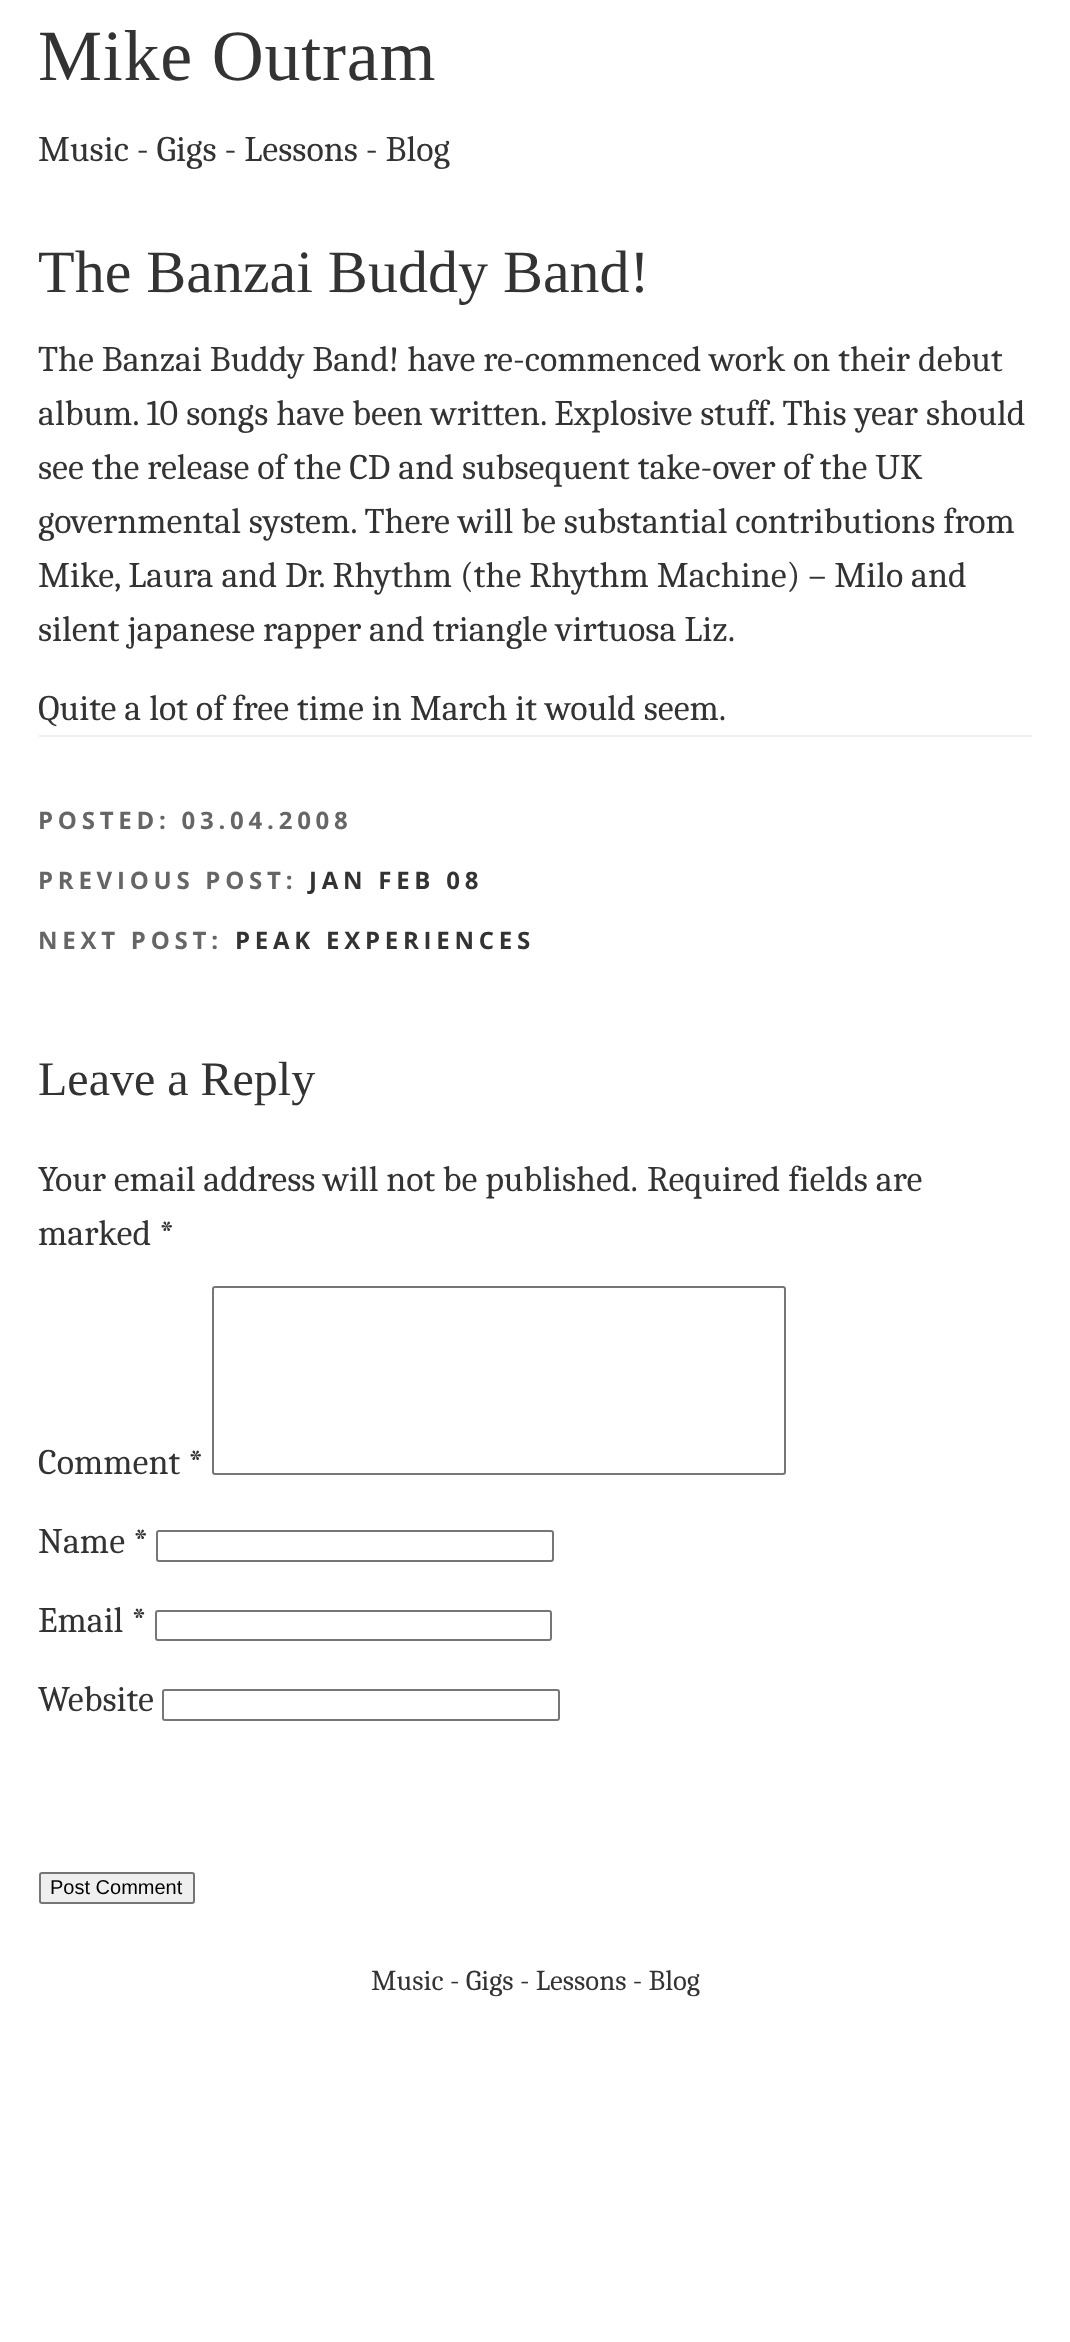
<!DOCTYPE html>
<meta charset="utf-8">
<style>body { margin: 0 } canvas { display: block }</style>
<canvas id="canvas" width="1070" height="2342"></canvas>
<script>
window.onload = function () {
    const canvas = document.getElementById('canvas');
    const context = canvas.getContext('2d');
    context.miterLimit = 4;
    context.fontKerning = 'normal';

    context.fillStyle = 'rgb(255, 255, 255)';
    context.fillRect(0, 0, 1070, 2342);
    context.fillStyle = 'rgb(239, 239, 239)';
    context.fillRect(39, 735, 993, 2);
    context.beginPath();
    context.roundRect(213, 1287, 572, 187, 2);
    context.strokeStyle = 'rgb(118, 118, 118)';
    context.lineWidth = 2;
    context.stroke();
    context.beginPath();
    context.roundRect(157, 1531, 396, 30, 2);
    context.stroke();
    context.beginPath();
    context.roundRect(156, 1611, 395, 29, 2);
    context.stroke();
    context.beginPath();
    context.roundRect(163, 1690, 396, 30, 2);
    context.stroke();
    context.beginPath();
    context.roundRect(40, 1873, 154, 30, 2);
    context.fill();
    context.stroke();
    context.letterSpacing = '0.75px';
    context.font = '72px Liberation Serif';
    context.fillStyle = 'rgb(51, 51, 51)';
    context.fillText('Mike Outram', 38, 80);
    context.letterSpacing = '0px';
    context.font = '36px Caladea';
    context.fillText('Music - Gigs - Lessons - Blog', 38, 161);
    context.font = '60px Liberation Serif';
    context.fillText('The Banzai Buddy Band!', 38, 292);
    context.font = '36px Caladea';
    context.fillText('The Banzai Buddy Band! have re-commenced work on their debut', 38, 371);
    context.fillText('album. 10 songs have been written. Explosive stuff. This year should', 38, 425);
    context.fillText('see the release of the CD and subsequent take-over of the UK', 38, 479);
    context.fillText('governmental system. There will be substantial contributions from', 38, 533);
    context.fillText('Mike, Laura and Dr. Rhythm (the Rhythm Machine) – Milo and', 38, 587);
    context.fillText('silent japanese rapper and triangle virtuosa Liz.', 38, 641);
    context.fillText('Quite a lot of free time in March it would seem.', 38, 720);
    context.letterSpacing = '4.75px';
    context.font = 'bold 24px Open Sans';
    context.fillStyle = 'rgb(102, 102, 102)';
    context.fillText('POSTED: 03.04.2008', 38, 829);
    context.fillText('PREVIOUS POST:', 38, 889);
    context.fillStyle = 'rgb(51, 51, 51)';
    context.fillText('JAN FEB 08', 309, 889);
    context.fillStyle = 'rgb(102, 102, 102)';
    context.fillText('NEXT POST:', 38, 949);
    context.fillStyle = 'rgb(51, 51, 51)';
    context.fillText('PEAK EXPERIENCES', 235, 949);
    context.letterSpacing = '0px';
    context.font = '48px Liberation Serif';
    context.fillText('Leave a Reply', 38, 1095);
    context.wordSpacing = '-0.25px';
    context.font = '36px Caladea';
    context.fillText('Your email address will not be published.', 38, 1191);
    context.wordSpacing = '0px';
    context.fillText('Required fields are', 647, 1191);
    context.fillText('marked *', 38, 1245);
    context.fillText('Comment *', 38, 1474);
    context.fillText('Name *', 38, 1553);
    context.fillText('Email *', 38, 1632);
    context.fillText('Website', 38, 1711);
    context.font = '20px Liberation Sans';
    context.fillStyle = 'rgb(0, 0, 0)';
    context.fillText('Post Comment', 50, 1894);
    context.font = '28.75px Caladea';
    context.fillStyle = 'rgb(51, 51, 51)';
    context.fillText('Music - Gigs - Lessons - Blog', 371, 1990);
};
</script>
